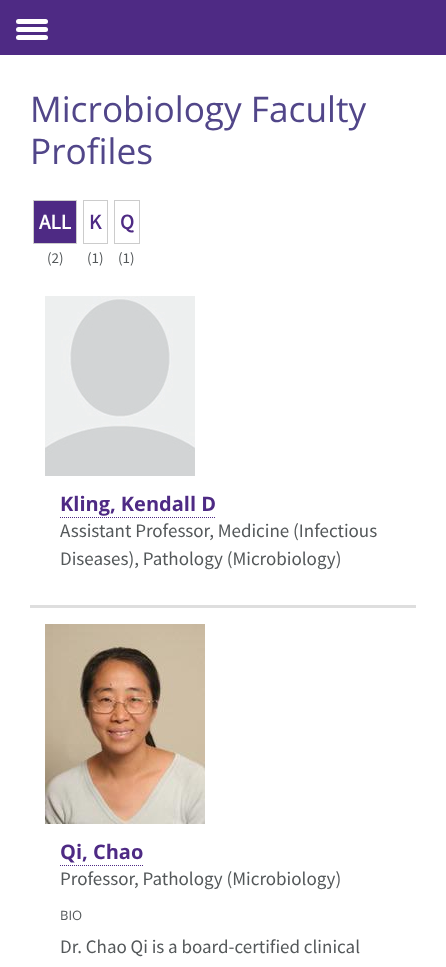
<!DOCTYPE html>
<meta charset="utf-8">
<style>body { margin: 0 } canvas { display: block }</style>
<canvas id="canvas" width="446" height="967"></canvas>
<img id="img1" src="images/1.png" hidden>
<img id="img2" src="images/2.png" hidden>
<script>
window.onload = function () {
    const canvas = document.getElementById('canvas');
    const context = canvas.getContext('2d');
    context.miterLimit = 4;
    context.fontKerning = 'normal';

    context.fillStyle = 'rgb(255, 255, 255)';
    context.fillRect(0, 0, 446, 967);
    context.fillStyle = 'rgb(78, 42, 132)';
    context.fillRect(0, 0, 446, 55);
    context.fillStyle = 'rgb(255, 255, 255)';
    context.beginPath();
    context.roundRect(16, 27, 32, 5, 2.5);
    context.fill();
    context.beginPath();
    context.roundRect(16, 19, 32, 5, 2.5);
    context.fill();
    context.beginPath();
    context.roundRect(16, 35, 32, 5, 2.5);
    context.fill();
    context.fillStyle = 'rgb(78, 42, 132)';
    context.beginPath();
    context.rect(33.5, 200.5, 43, 43);
    context.fill();
    context.strokeStyle = 'rgb(204, 204, 204)';
    context.stroke();
    context.strokeRect(83.5, 200.5, 24, 43);
    context.strokeRect(114.5, 200.5, 25, 43);
    context.fillStyle = 'rgb(222, 222, 222)';
    context.fillRect(30, 605, 386, 3);
    context.drawImage(document.getElementById('img1'), 45, 296, 150, 180);
    context.beginPath();
    context.moveTo(60, 517.5);
    context.lineTo(216, 517.5);
    context.strokeStyle = 'rgb(78, 42, 132)';
    context.setLineDash([1, 1]);
    context.stroke();
    context.drawImage(document.getElementById('img2'), 45, 624, 160, 200);
    context.beginPath();
    context.moveTo(60, 865.5);
    context.lineTo(143, 865.5);
    context.stroke();
    context.font = '35.25px Open Sans';
    context.fillStyle = 'rgb(81, 70, 137)';
    context.fillText('Microbiology Faculty', 30, 122);
    context.fillText('Profiles', 30, 164);
    context.font = 'bold 21px Source Sans Pro';
    context.fillStyle = 'rgb(255, 255, 255)';
    context.fillText('ALL', 39, 229);
    context.font = '15px Source Sans Pro';
    context.fillStyle = 'rgb(84, 88, 90)';
    context.fillText('(2)', 47, 263);
    context.font = 'bold 21px Source Sans Pro';
    context.fillStyle = 'rgb(78, 42, 132)';
    context.fillText('K', 89, 229);
    context.font = '15px Source Sans Pro';
    context.fillStyle = 'rgb(84, 88, 90)';
    context.fillText('(1)', 87, 263);
    context.font = 'bold 21px Source Sans Pro';
    context.fillStyle = 'rgb(78, 42, 132)';
    context.fillText('Q', 120, 229);
    context.font = '15px Source Sans Pro';
    context.fillStyle = 'rgb(84, 88, 90)';
    context.fillText('(1)', 118, 263);
    context.font = 'bold 20px Open Sans';
    context.fillStyle = 'rgb(78, 42, 132)';
    context.fillText('Kling, Kendall D', 60, 511);
    context.font = '19px Source Sans Pro';
    context.fillStyle = 'rgb(84, 88, 90)';
    context.fillText('Assistant Professor, Medicine (Infectious', 60, 537);
    context.fillText('Diseases), Pathology (Microbiology)', 60, 565);
    context.font = 'bold 20px Open Sans';
    context.fillStyle = 'rgb(78, 42, 132)';
    context.fillText('Qi, Chao', 60, 859);
    context.font = '19px Source Sans Pro';
    context.fillStyle = 'rgb(84, 88, 90)';
    context.fillText('Professor, Pathology (Microbiology)', 60, 885);
    context.font = '13px Open Sans';
    context.fillText('BIO', 60, 920);
    context.font = '19px Source Sans Pro';
    context.fillText('Dr. Chao Qi is a board-certified clinical', 60, 953);
};
</script>
